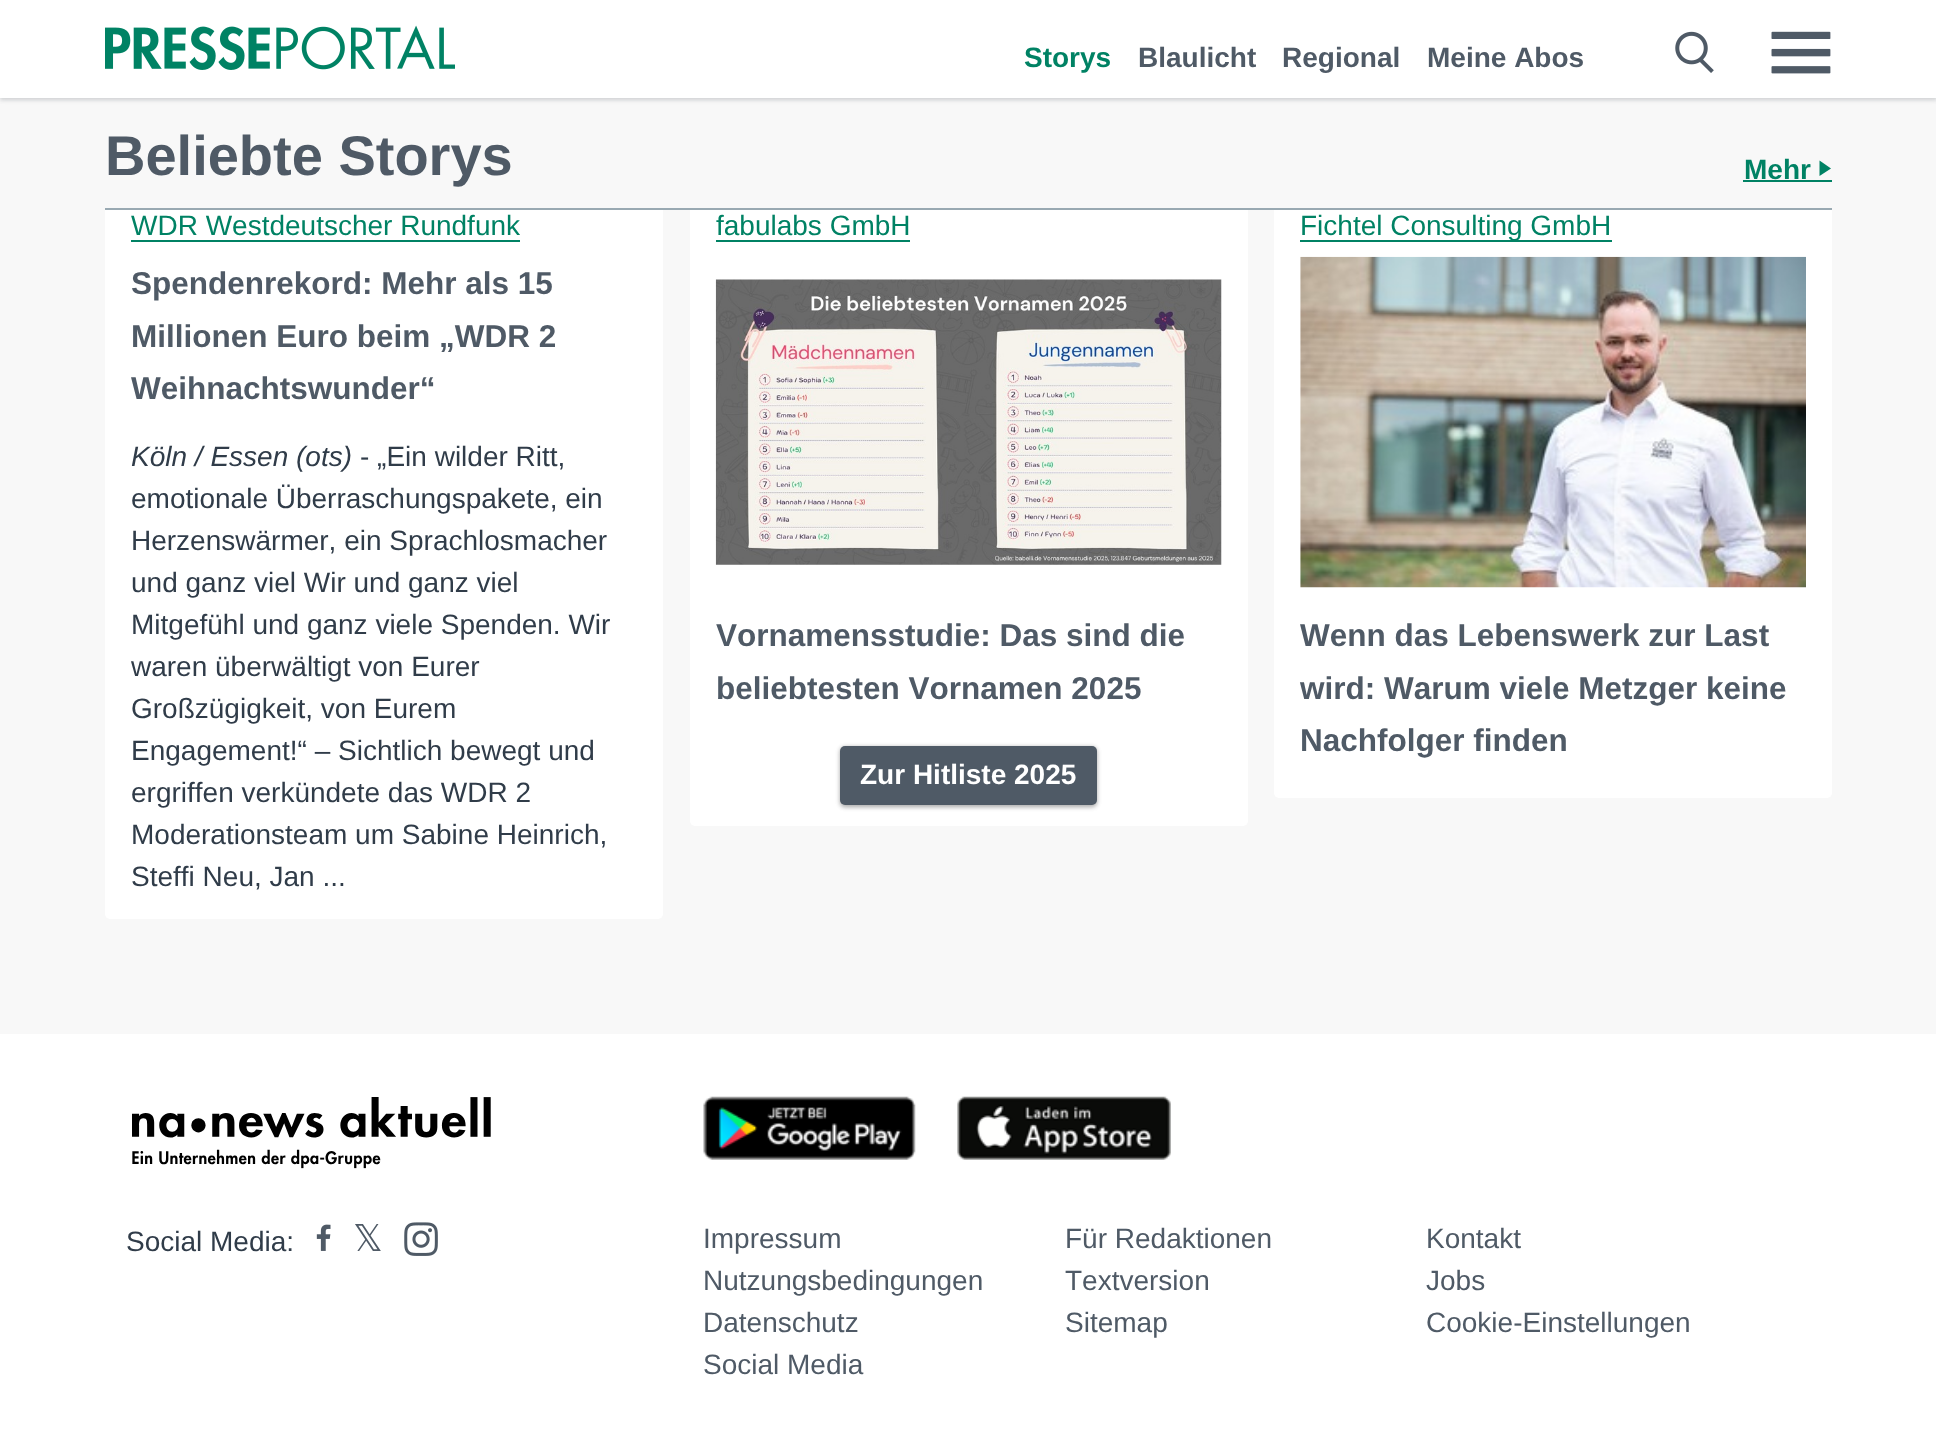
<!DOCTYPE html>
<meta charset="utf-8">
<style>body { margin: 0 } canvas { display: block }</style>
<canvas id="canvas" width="1936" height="1448"></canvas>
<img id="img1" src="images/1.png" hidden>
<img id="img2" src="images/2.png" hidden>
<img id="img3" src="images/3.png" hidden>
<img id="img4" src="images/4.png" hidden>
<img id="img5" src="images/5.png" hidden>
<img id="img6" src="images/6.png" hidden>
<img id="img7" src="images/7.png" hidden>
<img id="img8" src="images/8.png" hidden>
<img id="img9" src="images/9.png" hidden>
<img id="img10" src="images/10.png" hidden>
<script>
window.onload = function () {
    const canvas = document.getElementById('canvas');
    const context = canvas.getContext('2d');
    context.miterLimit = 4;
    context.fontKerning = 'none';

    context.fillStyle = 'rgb(248, 248, 248)';
    context.fillRect(0, 0, 1936, 1448);
    context.fillStyle = 'rgba(79, 90, 102, 0.16)';
    context.filter = 'blur(2px)';
    context.beginPath();
    context.rect(0, 2, 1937, 98);
    context.fill();
    context.filter = 'none';
    context.fillStyle = 'rgba(79, 90, 102, 0.1)';
    context.filter = 'blur(2px)';
    context.beginPath();
    context.rect(0, 2, 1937, 98);
    context.fill();
    context.filter = 'none';
    context.fillStyle = 'rgb(255, 255, 255)';
    context.fillRect(0, 0, 1936, 98);
    context.drawImage(document.getElementById('img1'), 105, 25, 350, 45);
    context.drawImage(document.getElementById('img2'), 1675, 31, 39, 42);
    context.drawImage(document.getElementById('img3'), 1771, 31, 60, 43);
    context.beginPath();
    context.roundRect(105, 142, 558, 777, 5);
    context.fill();
    context.beginPath();
    context.roundRect(690, 142, 558, 684, 5);
    context.fill();
    context.beginPath();
    context.roundRect(1274, 142, 558, 656, 5);
    context.fill();
    context.fillStyle = 'rgb(248, 248, 248)';
    context.fillRect(105, 142, 1727, 66);
    context.fillStyle = 'rgb(153, 169, 178)';
    context.fillRect(105, 208, 1727, 2);
    context.fillStyle = 'rgb(0, 130, 100)';
    context.fillRect(1743, 180, 89, 2);
    context.beginPath();
    context.moveTo(1819.5, 176);
    context.lineTo(1819.5, 160.5);
    context.lineTo(1831, 168.5);
    context.closePath();
    context.fill();
    context.fillRect(131, 240, 389, 2);
    context.fillRect(716, 240, 194, 2);
    context.drawImage(document.getElementById('img4'), 715, 279, 507, 286);
    context.fillStyle = 'rgba(0, 0, 0, 0.24)';
    context.filter = 'blur(2px)';
    context.beginPath();
    context.roundRect(840, 747, 257, 60, 5);
    context.fill();
    context.filter = 'none';
    context.fillStyle = 'rgba(0, 0, 0, 0.12)';
    context.filter = 'blur(2.5px)';
    context.beginPath();
    context.roundRect(840, 747, 257, 60, 5);
    context.fill();
    context.filter = 'none';
    context.fillStyle = 'rgb(79, 90, 102)';
    context.beginPath();
    context.roundRect(840, 746, 257, 59, 5);
    context.fill();
    context.fillStyle = 'rgb(0, 130, 100)';
    context.fillRect(1300, 240, 312, 2);
    context.drawImage(document.getElementById('img5'), 1300, 256, 506, 332);
    context.fillStyle = 'rgb(255, 255, 255)';
    context.fillRect(0, 1034, 1936, 414);
    context.drawImage(document.getElementById('img6'), 132, 1097, 359, 72);
    context.drawImage(document.getElementById('img7'), 703, 1096, 213, 64);
    context.drawImage(document.getElementById('img8'), 957, 1096, 214, 64);
    context.drawImage(document.getElementById('img9'), 316, 1224, 15, 27);
    context.drawImage(document.getElementById('img10'), 404, 1222, 34, 34);
    context.font = 'bold 28px Liberation Sans';
    context.fillStyle = 'rgb(0, 130, 100)';
    context.fillText('Storys', 1024, 67);
    context.fillStyle = 'rgb(79, 90, 102)';
    context.fillText('Blaulicht', 1138, 67);
    context.fillText('Regional', 1282, 67);
    context.fillText('Meine Abos', 1427, 67);
    context.font = 'bold 56px Liberation Sans';
    context.fillText('Beliebte Storys', 105, 175);
    context.font = 'bold 28px Liberation Sans';
    context.fillStyle = 'rgb(0, 130, 100)';
    context.fillText('Mehr', 1744, 179);
    context.font = '28px Liberation Sans';
    context.fillText('WDR Westdeutscher Rundfunk', 131, 235);
    context.font = 'bold 31.5px Liberation Sans';
    context.fillStyle = 'rgb(79, 90, 102)';
    context.fillText('Spendenrekord: Mehr als 15', 131, 294);
    context.fillText('Millionen Euro beim „WDR 2', 131, 347);
    context.fillText('Weihnachtswunder“', 131, 399);
    context.font = 'italic 28px Liberation Sans';
    context.fillStyle = 'rgb(48, 60, 73)';
    context.fillText('Köln / Essen (ots)', 131, 466);
    context.font = '28px Liberation Sans';
    context.fillText('- „Ein wilder Ritt,', 360, 466);
    context.fillText('emotionale Überraschungspakete, ein', 131, 508);
    context.fillText('Herzenswärmer, ein Sprachlosmacher', 131, 550);
    context.fillText('und ganz viel Wir und ganz viel', 131, 592);
    context.fillText('Mitgefühl und ganz viele Spenden. Wir', 131, 634);
    context.fillText('waren überwältigt von Eurer', 131, 676);
    context.fillText('Großzügigkeit, von Eurem', 131, 718);
    context.fillText('Engagement!“ – Sichtlich bewegt und', 131, 760);
    context.fillText('ergriffen verkündete das WDR 2', 131, 802);
    context.fillText('Moderationsteam um Sabine Heinrich,', 131, 844);
    context.fillText('Steffi Neu, Jan ...', 131, 886);
    context.fillStyle = 'rgb(0, 130, 100)';
    context.fillText('fabulabs GmbH', 716, 235);
    context.font = 'bold 31.5px Liberation Sans';
    context.fillStyle = 'rgb(79, 90, 102)';
    context.fillText('Vornamensstudie: Das sind die', 716, 646);
    context.fillText('beliebtesten Vornamen 2025', 716, 699);
    context.font = 'bold 28px Liberation Sans';
    context.fillStyle = 'rgb(255, 255, 255)';
    context.fillText('Zur Hitliste 2025', 860, 784);
    context.font = '28px Liberation Sans';
    context.fillStyle = 'rgb(0, 130, 100)';
    context.fillText('Fichtel Consulting GmbH', 1300, 235);
    context.font = 'bold 31.5px Liberation Sans';
    context.fillStyle = 'rgb(79, 90, 102)';
    context.fillText('Wenn das Lebenswerk zur Last', 1300, 646);
    context.fillText('wird: Warum viele Metzger keine', 1300, 699);
    context.fillText('Nachfolger finden', 1300, 751);
    context.font = '28px Liberation Sans';
    context.fillStyle = 'rgb(48, 60, 73)';
    context.fillText('Social Media:', 126, 1251);
    context.font = '37px DejaVu Sans';
    context.fillStyle = 'rgb(79, 90, 102)';
    context.fillText('𝕏', 353, 1251);
    context.font = '28px Liberation Sans';
    context.fillText('Impressum', 703, 1248);
    context.fillText('Für Redaktionen', 1065, 1248);
    context.fillText('Kontakt', 1426, 1248);
    context.fillText('Nutzungsbedingungen', 703, 1290);
    context.fillText('Textversion', 1065, 1290);
    context.fillText('Jobs', 1426, 1290);
    context.fillText('Datenschutz', 703, 1332);
    context.fillText('Sitemap', 1065, 1332);
    context.fillText('Cookie-Einstellungen', 1426, 1332);
    context.fillText('Social Media', 703, 1374);
};
</script>
